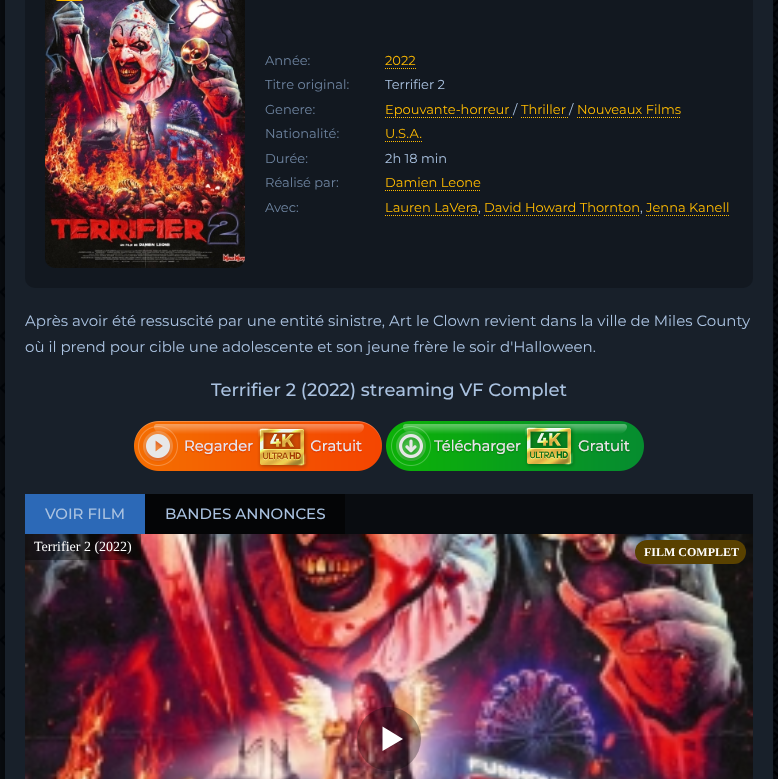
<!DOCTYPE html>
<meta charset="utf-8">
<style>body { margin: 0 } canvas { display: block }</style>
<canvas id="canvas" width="778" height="779"></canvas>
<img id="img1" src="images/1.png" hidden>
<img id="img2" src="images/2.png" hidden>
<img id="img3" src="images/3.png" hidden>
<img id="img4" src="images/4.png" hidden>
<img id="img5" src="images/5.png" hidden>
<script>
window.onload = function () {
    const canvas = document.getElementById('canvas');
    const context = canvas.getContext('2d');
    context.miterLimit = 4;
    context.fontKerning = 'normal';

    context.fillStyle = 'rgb(255, 255, 255)';
    context.fillRect(0, 0, 778, 779);
    context.drawImage(document.getElementById('img1'), 0, 0, 778, 779);
    context.fillStyle = 'rgba(0, 0, 0, 0.8)';
    context.filter = 'blur(15px)';
    context.beginPath();
    context.rect(5, -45, 768, 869);
    context.fill();
    context.filter = 'none';
    context.fillStyle = 'rgb(24, 32, 42)';
    context.fillRect(5, 0, 768, 779);
    context.fillStyle = 'rgb(18, 24, 32)';
    context.beginPath();
    context.roundRect(25, -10, 728, 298, 10);
    context.fill();
    context.drawImage(document.getElementById('img2'), 45, 0, 200, 268);
    context.fillStyle = 'rgb(255, 187, 0)';
    context.beginPath();
    context.roundRect(55, -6, 29, 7, 6);
    context.fill();
    context.beginPath();
    context.moveTo(385, 68.5);
    context.lineTo(416, 68.5);
    context.strokeStyle = 'rgb(255, 187, 0)';
    context.setLineDash([1, 1]);
    context.stroke();
    context.beginPath();
    context.moveTo(385, 117.5);
    context.lineTo(513, 117.5);
    context.stroke();
    context.beginPath();
    context.moveTo(521, 117.5);
    context.lineTo(569, 117.5);
    context.stroke();
    context.beginPath();
    context.moveTo(577, 117.5);
    context.lineTo(681, 117.5);
    context.stroke();
    context.beginPath();
    context.moveTo(385, 141.5);
    context.lineTo(422, 141.5);
    context.stroke();
    context.beginPath();
    context.moveTo(385, 190.5);
    context.lineTo(481, 190.5);
    context.stroke();
    context.beginPath();
    context.moveTo(385, 215.5);
    context.lineTo(478, 215.5);
    context.stroke();
    context.beginPath();
    context.moveTo(484, 215.5);
    context.lineTo(640, 215.5);
    context.stroke();
    context.beginPath();
    context.moveTo(646, 215.5);
    context.lineTo(730, 215.5);
    context.stroke();
    context.drawImage(document.getElementById('img3'), 134, 421, 248, 50);
    context.drawImage(document.getElementById('img4'), 386, 421, 258, 50);
    context.fillStyle = 'rgb(9, 12, 16)';
    context.fillRect(345, 494, 408, 40);
    context.fillStyle = 'rgb(44, 105, 183)';
    context.fillRect(25, 494, 120, 40);
    context.fillStyle = 'rgb(4, 5, 6)';
    context.fillRect(145, 494, 200, 40);
    context.drawImage(document.getElementById('img5'), 25, 534, 728, 245);
    context.fillStyle = 'rgba(0, 0, 0, 0.4)';
    context.fillRect(25, 534, 116, 26);
    context.fillStyle = 'rgb(89, 65, 0)';
    context.beginPath();
    context.roundRect(635, 540, 111, 24, 12);
    context.fill();
    context.fillStyle = 'rgba(0, 0, 0, 0.3)';
    context.beginPath();
    context.arc(389, 739, 32, 0, 2 * Math.PI);
    context.fill();
    context.fillStyle = 'rgb(255, 255, 255)';
    context.beginPath();
    context.moveTo(382.5, 726.5);
    context.lineTo(382.5, 751);
    context.lineTo(403, 739);
    context.lineTo(382.5, 726.5);
    context.fill();
    context.font = '13px Montserrat';
    context.fillStyle = 'rgb(110, 132, 160)';
    context.fillText('Année:', 265, 65);
    context.fillStyle = 'rgb(255, 187, 0)';
    context.fillText('2022', 385, 65);
    context.fillStyle = 'rgb(110, 132, 160)';
    context.fillText('Titre original:', 265, 89);
    context.fillStyle = 'rgb(170, 194, 224)';
    context.fillText('Terrifier 2', 385, 89);
    context.fillStyle = 'rgb(110, 132, 160)';
    context.fillText('Genere:', 265, 114);
    context.fillStyle = 'rgb(255, 187, 0)';
    context.fillText('Epouvante-horreur', 385, 114);
    context.fillStyle = 'rgb(170, 194, 224)';
    context.fillText('/', 513, 114);
    context.fillStyle = 'rgb(255, 187, 0)';
    context.fillText('Thriller', 521, 114);
    context.fillStyle = 'rgb(170, 194, 224)';
    context.fillText('/', 569, 114);
    context.fillStyle = 'rgb(255, 187, 0)';
    context.fillText('Nouveaux Films', 577, 114);
    context.fillStyle = 'rgb(110, 132, 160)';
    context.fillText('Nationalité:', 265, 138);
    context.fillStyle = 'rgb(255, 187, 0)';
    context.fillText('U.S.A.', 385, 138);
    context.fillStyle = 'rgb(110, 132, 160)';
    context.fillText('Durée:', 265, 163);
    context.fillStyle = 'rgb(170, 194, 224)';
    context.fillText('2h 18 min', 385, 163);
    context.fillStyle = 'rgb(110, 132, 160)';
    context.fillText('Réalisé par:', 265, 187);
    context.fillStyle = 'rgb(255, 187, 0)';
    context.fillText('Damien Leone', 385, 187);
    context.fillStyle = 'rgb(110, 132, 160)';
    context.fillText('Avec:', 265, 212);
    context.fillStyle = 'rgb(255, 187, 0)';
    context.fillText('Lauren LaVera', 385, 212);
    context.fillStyle = 'rgb(170, 194, 224)';
    context.fillText(',', 478, 212);
    context.fillStyle = 'rgb(255, 187, 0)';
    context.fillText('David Howard Thornton', 484, 212);
    context.fillStyle = 'rgb(170, 194, 224)';
    context.fillText(',', 640, 212);
    context.fillStyle = 'rgb(255, 187, 0)';
    context.fillText('Jenna Kanell', 646, 212);
    context.font = '15px Montserrat';
    context.fillStyle = 'rgb(170, 194, 224)';
    context.fillText('Après avoir été ressuscité par une entité sinistre, Art le Clown revient dans la ville de Miles County', 25, 326);
    context.fillText('où il prend pour cible une adolescente et son jeune frère le soir d\'Halloween.', 25, 352);
    context.font = '500 18px Montserrat';
    context.fillText('Terrifier 2 (2022) streaming VF Complet', 211, 396);
    context.font = '500 15px Montserrat';
    context.fillText('VOIR FILM', 45, 519);
    context.fillText('BANDES ANNONCES', 165, 519);
    context.font = '14px Liberation Serif';
    context.fillStyle = 'rgb(255, 255, 255)';
    context.fillText('Terrifier 2 (2022)', 34, 551);
    context.font = 'bold 12px Liberation Serif';
    context.fillText('FILM COMPLET', 644, 556);
};
</script>
